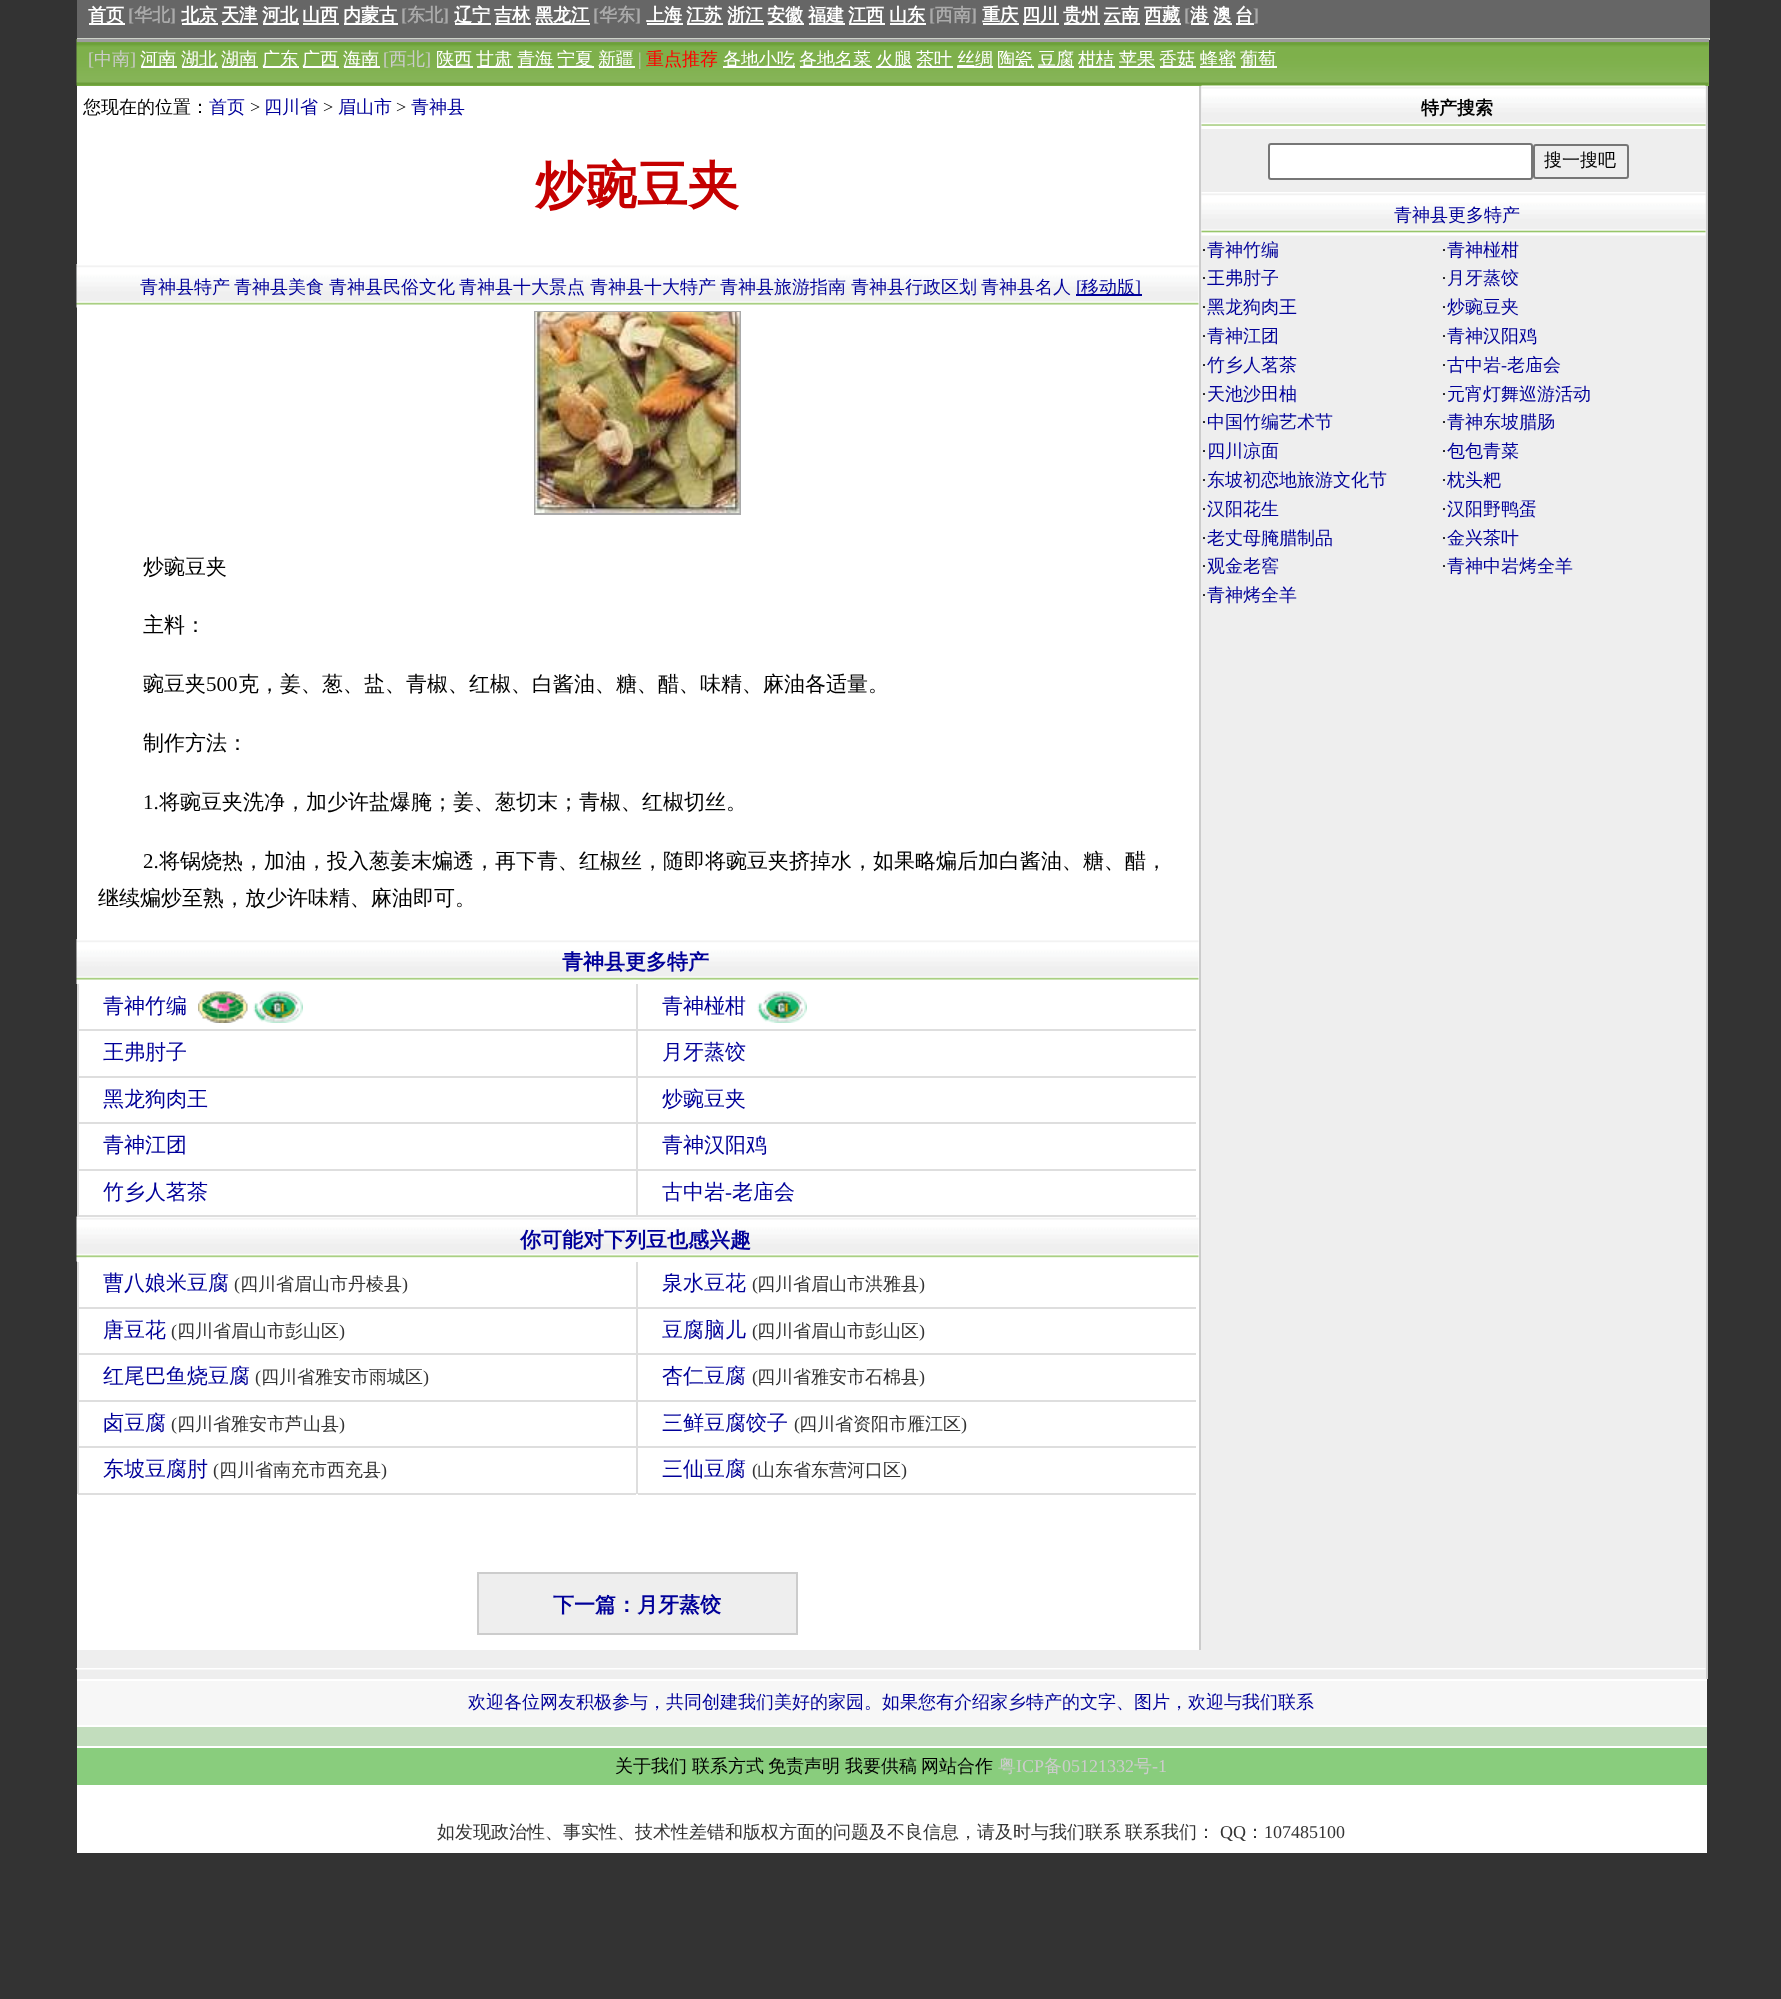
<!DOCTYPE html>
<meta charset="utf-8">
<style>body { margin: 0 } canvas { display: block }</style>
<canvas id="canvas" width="1781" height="1999"></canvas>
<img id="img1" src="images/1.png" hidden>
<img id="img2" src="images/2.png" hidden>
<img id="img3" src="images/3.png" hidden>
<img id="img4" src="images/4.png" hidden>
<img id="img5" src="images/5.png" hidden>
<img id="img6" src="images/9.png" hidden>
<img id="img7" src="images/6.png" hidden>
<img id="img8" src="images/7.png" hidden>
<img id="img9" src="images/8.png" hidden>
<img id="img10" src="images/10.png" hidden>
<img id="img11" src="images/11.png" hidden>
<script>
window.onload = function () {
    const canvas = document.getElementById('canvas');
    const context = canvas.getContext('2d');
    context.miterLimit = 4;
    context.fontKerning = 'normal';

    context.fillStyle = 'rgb(51, 51, 51)';
    context.fillRect(0, 0, 1781, 1999);
    context.fillStyle = 'rgb(102, 102, 102)';
    context.fillRect(77, 0, 1633, 38);
    context.fillStyle = 'rgb(205, 210, 200)';
    context.fillRect(77, 38, 1633, 2);
    context.fillStyle = 'rgb(255, 255, 255)';
    context.fillRect(89, 23, 36, 2);
    context.fillRect(182, 23, 36, 2);
    context.fillRect(222, 23, 36, 2);
    context.fillRect(263, 23, 36, 2);
    context.fillRect(303, 23, 36, 2);
    context.fillRect(344, 23, 54, 2);
    context.fillRect(455, 23, 36, 2);
    context.fillRect(495, 23, 36, 2);
    context.fillRect(536, 23, 54, 2);
    context.fillRect(647, 23, 36, 2);
    context.fillRect(687, 23, 36, 2);
    context.fillRect(728, 23, 36, 2);
    context.fillRect(768, 23, 36, 2);
    context.fillRect(809, 23, 36, 2);
    context.fillRect(849, 23, 36, 2);
    context.fillRect(890, 23, 36, 2);
    context.fillRect(983, 23, 36, 2);
    context.fillRect(1023, 23, 36, 2);
    context.fillRect(1064, 23, 36, 2);
    context.fillRect(1104, 23, 36, 2);
    context.fillRect(1145, 23, 36, 2);
    context.fillRect(1191, 23, 18, 2);
    context.fillRect(1214, 23, 18, 2);
    context.fillRect(1236, 23, 18, 2);
    context.fillStyle = 'rgb(127, 177, 77)';
    context.fillRect(77, 42, 1632, 44);
    context.drawImage(document.getElementById('img1'), 76, 39, 1633, 47);
    context.fillStyle = 'rgb(156, 156, 156)';
    context.fillRect(77, 39, 1632, 3);
    context.fillStyle = 'rgb(255, 255, 255)';
    context.fillRect(141, 66, 36, 2);
    context.fillRect(182, 66, 36, 2);
    context.fillRect(222, 66, 36, 2);
    context.fillRect(263, 66, 36, 2);
    context.fillRect(303, 66, 36, 2);
    context.fillRect(344, 66, 36, 2);
    context.fillRect(437, 66, 36, 2);
    context.fillRect(477, 66, 36, 2);
    context.fillRect(518, 66, 36, 2);
    context.fillRect(558, 66, 36, 2);
    context.fillRect(599, 66, 36, 2);
    context.fillRect(723, 66, 72, 2);
    context.fillRect(800, 66, 72, 2);
    context.fillRect(876, 66, 36, 2);
    context.fillRect(917, 66, 36, 2);
    context.fillRect(957, 66, 36, 2);
    context.fillRect(998, 66, 36, 2);
    context.fillRect(1038, 66, 36, 2);
    context.fillRect(1079, 66, 36, 2);
    context.fillRect(1119, 66, 36, 2);
    context.fillRect(1160, 66, 36, 2);
    context.fillRect(1200, 66, 36, 2);
    context.fillRect(1241, 66, 36, 2);
    context.fillStyle = 'rgb(238, 238, 238)';
    context.fillRect(77, 86, 1629, 1593);
    context.fillStyle = 'rgb(204, 204, 204)';
    context.fillRect(1706, 86, 2, 1593);
    context.drawImage(document.getElementById('img2'), 76, 1668, 1630, 2);
    context.fillStyle = 'rgb(255, 255, 255)';
    context.fillRect(77, 86, 1122, 1564);
    context.fillStyle = 'rgb(204, 204, 204)';
    context.fillRect(1199, 86, 2, 1564);
    context.drawImage(document.getElementById('img3'), 76, 264, 1123, 44);
    context.fillStyle = 'rgb(0, 0, 153)';
    context.fillRect(1076, 294, 66, 2);
    context.strokeStyle = 'rgb(170, 170, 170)';
    context.lineWidth = 2;
    context.strokeRect(535, 312, 205, 202);
    context.drawImage(document.getElementById('img4'), 535, 312, 205, 201);
    context.drawImage(document.getElementById('img5'), 76, 939, 1123, 45);
    context.drawImage(document.getElementById('img6'), 76, 1216, 1123, 46);
    context.fillStyle = 'rgb(222, 222, 222)';
    context.fillRect(77, 984, 2, 233);
    context.fillRect(78, 1029, 558, 2);
    context.drawImage(document.getElementById('img7'), 198, 991, 50, 32);
    context.drawImage(document.getElementById('img8'), 253, 991, 50, 32);
    context.fillRect(636, 984, 2, 233);
    context.fillRect(638, 1029, 558, 2);
    context.drawImage(document.getElementById('img9'), 757, 991, 50, 32);
    context.fillRect(78, 1076, 558, 2);
    context.fillRect(638, 1076, 558, 2);
    context.fillRect(78, 1122, 558, 2);
    context.fillRect(638, 1122, 558, 2);
    context.fillRect(78, 1169, 558, 2);
    context.fillRect(638, 1169, 558, 2);
    context.fillRect(78, 1215, 558, 2);
    context.fillRect(638, 1215, 558, 2);
    context.fillRect(77, 1262, 2, 232);
    context.fillRect(78, 1307, 558, 2);
    context.fillRect(636, 1262, 2, 232);
    context.fillRect(638, 1307, 558, 2);
    context.fillRect(78, 1353, 558, 2);
    context.fillRect(638, 1353, 558, 2);
    context.fillRect(78, 1400, 558, 2);
    context.fillRect(638, 1400, 558, 2);
    context.fillRect(78, 1446, 558, 2);
    context.fillRect(638, 1446, 558, 2);
    context.fillRect(78, 1493, 558, 2);
    context.fillRect(638, 1493, 558, 2);
    context.fillStyle = 'rgb(238, 238, 238)';
    context.beginPath();
    context.rect(478, 1573, 319, 61);
    context.fill();
    context.strokeStyle = 'rgb(204, 204, 204)';
    context.stroke();
    context.drawImage(document.getElementById('img10'), 1201, 85, 505, 44);
    context.fillStyle = 'rgb(255, 255, 255)';
    context.beginPath();
    context.roundRect(1269, 144, 263, 35, 2);
    context.fill();
    context.strokeStyle = 'rgb(118, 118, 118)';
    context.stroke();
    context.beginPath();
    context.roundRect(1534, 145, 94, 33, 2);
    context.stroke();
    context.drawImage(document.getElementById('img11'), 1201, 192, 505, 44);
    context.fillStyle = 'rgb(247, 247, 247)';
    context.fillRect(77, 1681, 1630, 44);
    context.fillStyle = 'rgb(255, 255, 255)';
    context.fillRect(77, 1679, 1630, 2);
    context.fillRect(77, 1725, 1630, 2);
    context.fillStyle = 'rgb(194, 221, 189)';
    context.fillRect(77, 1727, 1630, 19);
    context.fillStyle = 'rgb(137, 205, 125)';
    context.fillRect(77, 1748, 1630, 37);
    context.fillStyle = 'rgb(255, 255, 255)';
    context.fillRect(77, 1746, 1630, 2);
    context.fillRect(77, 1785, 1630, 68);
    context.font = 'bold 18px WenQuanYi Zen Hei';
    context.fillText('首页', 88, 21);
    context.font = 'bold 18px Liberation Serif';
    context.fillStyle = 'rgb(170, 170, 170)';
    context.fillText('[', 128, 21);
    context.font = 'bold 18px WenQuanYi Zen Hei';
    context.fillText('华北', 134, 21);
    context.font = 'bold 18px Liberation Serif';
    context.fillText(']', 170, 21);
    context.font = 'bold 18px WenQuanYi Zen Hei';
    context.fillStyle = 'rgb(255, 255, 255)';
    context.fillText('北京', 181, 21);
    context.fillText('天津', 221, 21);
    context.fillText('河北', 262, 21);
    context.fillText('山西', 302, 21);
    context.fillText('内蒙古', 343, 21);
    context.font = 'bold 18px Liberation Serif';
    context.fillStyle = 'rgb(170, 170, 170)';
    context.fillText('[', 401, 21);
    context.font = 'bold 18px WenQuanYi Zen Hei';
    context.fillText('东北', 407, 21);
    context.font = 'bold 18px Liberation Serif';
    context.fillText(']', 443, 21);
    context.font = 'bold 18px WenQuanYi Zen Hei';
    context.fillStyle = 'rgb(255, 255, 255)';
    context.fillText('辽宁', 454, 21);
    context.fillText('吉林', 494, 21);
    context.fillText('黑龙江', 535, 21);
    context.font = 'bold 18px Liberation Serif';
    context.fillStyle = 'rgb(170, 170, 170)';
    context.fillText('[', 593, 21);
    context.font = 'bold 18px WenQuanYi Zen Hei';
    context.fillText('华东', 599, 21);
    context.font = 'bold 18px Liberation Serif';
    context.fillText(']', 635, 21);
    context.font = 'bold 18px WenQuanYi Zen Hei';
    context.fillStyle = 'rgb(255, 255, 255)';
    context.fillText('上海', 646, 21);
    context.fillText('江苏', 686, 21);
    context.fillText('浙江', 727, 21);
    context.fillText('安徽', 767, 21);
    context.fillText('福建', 808, 21);
    context.fillText('江西', 848, 21);
    context.fillText('山东', 889, 21);
    context.font = 'bold 18px Liberation Serif';
    context.fillStyle = 'rgb(170, 170, 170)';
    context.fillText('[', 929, 21);
    context.font = 'bold 18px WenQuanYi Zen Hei';
    context.fillText('西南', 935, 21);
    context.font = 'bold 18px Liberation Serif';
    context.fillText(']', 971, 21);
    context.font = 'bold 18px WenQuanYi Zen Hei';
    context.fillStyle = 'rgb(255, 255, 255)';
    context.fillText('重庆', 982, 21);
    context.fillText('四川', 1022, 21);
    context.fillText('贵州', 1063, 21);
    context.fillText('云南', 1103, 21);
    context.fillText('西藏', 1144, 21);
    context.font = 'bold 18px Liberation Serif';
    context.fillStyle = 'rgb(170, 170, 170)';
    context.fillText('[', 1184, 21);
    context.font = 'bold 18px WenQuanYi Zen Hei';
    context.fillStyle = 'rgb(255, 255, 255)';
    context.fillText('港', 1190, 21);
    context.fillText('澳', 1213, 21);
    context.fillText('台', 1235, 21);
    context.font = 'bold 18px Liberation Serif';
    context.fillStyle = 'rgb(170, 170, 170)';
    context.fillText(']', 1253, 21);
    context.font = '18px Liberation Serif';
    context.fillStyle = 'rgb(204, 204, 204)';
    context.fillText('[', 88, 65);
    context.font = '500 18px WenQuanYi Zen Hei';
    context.fillText('中南', 94, 65);
    context.font = '18px Liberation Serif';
    context.fillText(']', 130, 65);
    context.font = '500 18px WenQuanYi Zen Hei';
    context.fillStyle = 'rgb(255, 255, 255)';
    context.fillText('河南', 140, 65);
    context.fillText('湖北', 181, 65);
    context.fillText('湖南', 221, 65);
    context.fillText('广东', 262, 65);
    context.fillText('广西', 302, 65);
    context.fillText('海南', 343, 65);
    context.font = '18px Liberation Serif';
    context.fillStyle = 'rgb(204, 204, 204)';
    context.fillText('[', 383, 65);
    context.font = '500 18px WenQuanYi Zen Hei';
    context.fillText('西北', 389, 65);
    context.font = '18px Liberation Serif';
    context.fillText(']', 425, 65);
    context.font = '500 18px WenQuanYi Zen Hei';
    context.fillStyle = 'rgb(255, 255, 255)';
    context.fillText('陕西', 436, 65);
    context.fillText('甘肃', 476, 65);
    context.fillText('青海', 517, 65);
    context.fillText('宁夏', 557, 65);
    context.fillText('新疆', 598, 65);
    context.font = '18px Liberation Serif';
    context.fillStyle = 'rgb(204, 204, 204)';
    context.fillText('|', 638, 65);
    context.font = '500 18px WenQuanYi Zen Hei';
    context.fillStyle = 'rgb(255, 0, 0)';
    context.fillText('重点推荐', 646, 65);
    context.fillStyle = 'rgb(255, 255, 255)';
    context.fillText('各地小吃', 723, 65);
    context.fillText('各地名菜', 799, 65);
    context.fillText('火腿', 876, 65);
    context.fillText('茶叶', 916, 65);
    context.fillText('丝绸', 957, 65);
    context.fillText('陶瓷', 997, 65);
    context.fillText('豆腐', 1038, 65);
    context.fillText('柑桔', 1078, 65);
    context.fillText('苹果', 1119, 65);
    context.fillText('香菇', 1159, 65);
    context.fillText('蜂蜜', 1200, 65);
    context.fillText('葡萄', 1240, 65);
    context.fillStyle = 'rgb(0, 0, 0)';
    context.fillText('您现在的位置：', 83, 113);
    context.fillStyle = 'rgb(0, 0, 153)';
    context.fillText('首页', 209, 113);
    context.font = '18px Liberation Serif';
    context.fillStyle = 'rgb(0, 0, 0)';
    context.fillText('>', 250, 113);
    context.font = '500 18px WenQuanYi Zen Hei';
    context.fillStyle = 'rgb(0, 0, 153)';
    context.fillText('四川省', 264, 113);
    context.font = '18px Liberation Serif';
    context.fillStyle = 'rgb(0, 0, 0)';
    context.fillText('>', 323, 113);
    context.font = '500 18px WenQuanYi Zen Hei';
    context.fillStyle = 'rgb(0, 0, 153)';
    context.fillText('眉山市', 338, 113);
    context.font = '18px Liberation Serif';
    context.fillStyle = 'rgb(0, 0, 0)';
    context.fillText('>', 396, 113);
    context.font = '500 18px WenQuanYi Zen Hei';
    context.fillStyle = 'rgb(0, 0, 153)';
    context.fillText('青神县', 411, 113);
    context.font = 'bold 51px WenQuanYi Zen Hei';
    context.fillStyle = 'rgb(197, 0, 0)';
    context.fillText('炒豌豆夹', 535, 203);
    context.font = '500 18px WenQuanYi Zen Hei';
    context.fillStyle = 'rgb(0, 0, 153)';
    context.fillText('青神县特产', 140, 293);
    context.fillText('青神县美食', 234, 293);
    context.fillText('青神县民俗文化', 329, 293);
    context.fillText('青神县十大景点', 459, 293);
    context.fillText('青神县十大特产', 590, 293);
    context.fillText('青神县旅游指南', 720, 293);
    context.fillText('青神县行政区划', 851, 293);
    context.fillText('青神县名人', 981, 293);
    context.font = '18px Liberation Serif';
    context.fillText('[', 1076, 293);
    context.font = '500 18px WenQuanYi Zen Hei';
    context.fillText('移动版', 1081, 293);
    context.font = '18px Liberation Serif';
    context.fillText(']', 1135, 293);
    context.font = '500 21px WenQuanYi Zen Hei';
    context.fillStyle = 'rgb(0, 0, 0)';
    context.fillText('炒豌豆夹', 143, 574);
    context.fillText('主料：', 143, 632);
    context.fillText('豌豆夹', 143, 691);
    context.font = '21px Liberation Serif';
    context.fillText('500', 206, 691);
    context.font = '500 21px WenQuanYi Zen Hei';
    context.fillText('克，姜、葱、盐、青椒、红椒、白酱油、糖、醋、味精、麻油各适量。', 238, 691);
    context.fillText('制作方法：', 143, 750);
    context.font = '21px Liberation Serif';
    context.fillText('1.', 143, 809);
    context.font = '500 21px WenQuanYi Zen Hei';
    context.fillText('将豌豆夹洗净，加少许盐爆腌；姜、葱切末；青椒、红椒切丝。', 159, 809);
    context.font = '21px Liberation Serif';
    context.fillText('2.', 143, 868);
    context.font = '500 21px WenQuanYi Zen Hei';
    context.fillText('将锅烧热，加油，投入葱姜末煸透，再下青、红椒丝，随即将豌豆夹挤掉水，如果略煸后加白酱油、糖、醋，', 159, 868);
    context.fillText('继续煸炒至熟，放少许味精、麻油即可。', 98, 905);
    context.font = 'bold 21px WenQuanYi Zen Hei';
    context.fillStyle = 'rgb(0, 0, 153)';
    context.fillText('青神县更多特产', 562, 969);
    context.font = '500 21px WenQuanYi Zen Hei';
    context.fillText('青神竹编', 103, 1013);
    context.fillText('青神椪柑', 662, 1013);
    context.fillText('王弗肘子', 103, 1059);
    context.fillText('月牙蒸饺', 662, 1059);
    context.fillText('黑龙狗肉王', 103, 1106);
    context.fillText('炒豌豆夹', 662, 1106);
    context.fillText('青神江团', 103, 1152);
    context.fillText('青神汉阳鸡', 662, 1152);
    context.fillText('竹乡人茗茶', 103, 1199);
    context.fillText('古中岩', 662, 1199);
    context.font = '21px Liberation Serif';
    context.fillText('-', 725, 1199);
    context.font = '500 21px WenQuanYi Zen Hei';
    context.fillText('老庙会', 732, 1199);
    context.font = 'bold 21px WenQuanYi Zen Hei';
    context.fillText('你可能对下列豆也感兴趣', 520, 1247);
    context.font = '500 21px WenQuanYi Zen Hei';
    context.fillText('曹八娘米豆腐', 103, 1290);
    context.font = '18px Liberation Serif';
    context.fillStyle = 'rgb(51, 51, 51)';
    context.fillText('(', 234, 1290);
    context.font = '500 18px WenQuanYi Zen Hei';
    context.fillText('四川省眉山市丹棱县', 240, 1290);
    context.font = '18px Liberation Serif';
    context.fillText(')', 402, 1290);
    context.font = '500 21px WenQuanYi Zen Hei';
    context.fillStyle = 'rgb(0, 0, 153)';
    context.fillText('泉水豆花', 662, 1290);
    context.font = '18px Liberation Serif';
    context.fillStyle = 'rgb(51, 51, 51)';
    context.fillText('(', 752, 1290);
    context.font = '500 18px WenQuanYi Zen Hei';
    context.fillText('四川省眉山市洪雅县', 757, 1290);
    context.font = '18px Liberation Serif';
    context.fillText(')', 919, 1290);
    context.font = '500 21px WenQuanYi Zen Hei';
    context.fillStyle = 'rgb(0, 0, 153)';
    context.fillText('唐豆花', 103, 1337);
    context.font = '18px Liberation Serif';
    context.fillStyle = 'rgb(51, 51, 51)';
    context.fillText('(', 171, 1337);
    context.font = '500 18px WenQuanYi Zen Hei';
    context.fillText('四川省眉山市彭山区', 177, 1337);
    context.font = '18px Liberation Serif';
    context.fillText(')', 339, 1337);
    context.font = '500 21px WenQuanYi Zen Hei';
    context.fillStyle = 'rgb(0, 0, 153)';
    context.fillText('豆腐脑儿', 662, 1337);
    context.font = '18px Liberation Serif';
    context.fillStyle = 'rgb(51, 51, 51)';
    context.fillText('(', 752, 1337);
    context.font = '500 18px WenQuanYi Zen Hei';
    context.fillText('四川省眉山市彭山区', 757, 1337);
    context.font = '18px Liberation Serif';
    context.fillText(')', 919, 1337);
    context.font = '500 21px WenQuanYi Zen Hei';
    context.fillStyle = 'rgb(0, 0, 153)';
    context.fillText('红尾巴鱼烧豆腐', 103, 1383);
    context.font = '18px Liberation Serif';
    context.fillStyle = 'rgb(51, 51, 51)';
    context.fillText('(', 255, 1383);
    context.font = '500 18px WenQuanYi Zen Hei';
    context.fillText('四川省雅安市雨城区', 261, 1383);
    context.font = '18px Liberation Serif';
    context.fillText(')', 423, 1383);
    context.font = '500 21px WenQuanYi Zen Hei';
    context.fillStyle = 'rgb(0, 0, 153)';
    context.fillText('杏仁豆腐', 662, 1383);
    context.font = '18px Liberation Serif';
    context.fillStyle = 'rgb(51, 51, 51)';
    context.fillText('(', 752, 1383);
    context.font = '500 18px WenQuanYi Zen Hei';
    context.fillText('四川省雅安市石棉县', 757, 1383);
    context.font = '18px Liberation Serif';
    context.fillText(')', 919, 1383);
    context.font = '500 21px WenQuanYi Zen Hei';
    context.fillStyle = 'rgb(0, 0, 153)';
    context.fillText('卤豆腐', 103, 1430);
    context.font = '18px Liberation Serif';
    context.fillStyle = 'rgb(51, 51, 51)';
    context.fillText('(', 171, 1430);
    context.font = '500 18px WenQuanYi Zen Hei';
    context.fillText('四川省雅安市芦山县', 177, 1430);
    context.font = '18px Liberation Serif';
    context.fillText(')', 339, 1430);
    context.font = '500 21px WenQuanYi Zen Hei';
    context.fillStyle = 'rgb(0, 0, 153)';
    context.fillText('三鲜豆腐饺子', 662, 1430);
    context.font = '18px Liberation Serif';
    context.fillStyle = 'rgb(51, 51, 51)';
    context.fillText('(', 794, 1430);
    context.font = '500 18px WenQuanYi Zen Hei';
    context.fillText('四川省资阳市雁江区', 799, 1430);
    context.font = '18px Liberation Serif';
    context.fillText(')', 961, 1430);
    context.font = '500 21px WenQuanYi Zen Hei';
    context.fillStyle = 'rgb(0, 0, 153)';
    context.fillText('东坡豆腐肘', 103, 1476);
    context.font = '18px Liberation Serif';
    context.fillStyle = 'rgb(51, 51, 51)';
    context.fillText('(', 213, 1476);
    context.font = '500 18px WenQuanYi Zen Hei';
    context.fillText('四川省南充市西充县', 219, 1476);
    context.font = '18px Liberation Serif';
    context.fillText(')', 381, 1476);
    context.font = '500 21px WenQuanYi Zen Hei';
    context.fillStyle = 'rgb(0, 0, 153)';
    context.fillText('三仙豆腐', 662, 1476);
    context.font = '18px Liberation Serif';
    context.fillStyle = 'rgb(51, 51, 51)';
    context.fillText('(', 752, 1476);
    context.font = '500 18px WenQuanYi Zen Hei';
    context.fillText('山东省东营河口区', 757, 1476);
    context.font = '18px Liberation Serif';
    context.fillText(')', 901, 1476);
    context.font = 'bold 21px WenQuanYi Zen Hei';
    context.fillStyle = 'rgb(0, 0, 153)';
    context.fillText('下一篇：月牙蒸饺', 553, 1612);
    context.font = 'bold 18px WenQuanYi Zen Hei';
    context.fillStyle = 'rgb(0, 0, 0)';
    context.fillText('特产搜索', 1421, 114);
    context.font = '500 18px WenQuanYi Zen Hei';
    context.fillText('搜一搜吧', 1544, 166);
    context.fillStyle = 'rgb(0, 0, 153)';
    context.fillText('青神县更多特产', 1394, 221);
    context.font = '18px Liberation Serif';
    context.fillStyle = 'rgb(0, 0, 0)';
    context.fillText('·', 1201, 256);
    context.font = '500 18px WenQuanYi Zen Hei';
    context.fillStyle = 'rgb(0, 0, 153)';
    context.fillText('青神竹编', 1207, 256);
    context.font = '18px Liberation Serif';
    context.fillStyle = 'rgb(0, 0, 0)';
    context.fillText('·', 1441, 256);
    context.font = '500 18px WenQuanYi Zen Hei';
    context.fillStyle = 'rgb(0, 0, 153)';
    context.fillText('青神椪柑', 1447, 256);
    context.font = '18px Liberation Serif';
    context.fillStyle = 'rgb(0, 0, 0)';
    context.fillText('·', 1201, 284);
    context.font = '500 18px WenQuanYi Zen Hei';
    context.fillStyle = 'rgb(0, 0, 153)';
    context.fillText('王弗肘子', 1207, 284);
    context.font = '18px Liberation Serif';
    context.fillStyle = 'rgb(0, 0, 0)';
    context.fillText('·', 1441, 284);
    context.font = '500 18px WenQuanYi Zen Hei';
    context.fillStyle = 'rgb(0, 0, 153)';
    context.fillText('月牙蒸饺', 1447, 284);
    context.font = '18px Liberation Serif';
    context.fillStyle = 'rgb(0, 0, 0)';
    context.fillText('·', 1201, 313);
    context.font = '500 18px WenQuanYi Zen Hei';
    context.fillStyle = 'rgb(0, 0, 153)';
    context.fillText('黑龙狗肉王', 1207, 313);
    context.font = '18px Liberation Serif';
    context.fillStyle = 'rgb(0, 0, 0)';
    context.fillText('·', 1441, 313);
    context.font = '500 18px WenQuanYi Zen Hei';
    context.fillStyle = 'rgb(0, 0, 153)';
    context.fillText('炒豌豆夹', 1447, 313);
    context.font = '18px Liberation Serif';
    context.fillStyle = 'rgb(0, 0, 0)';
    context.fillText('·', 1201, 342);
    context.font = '500 18px WenQuanYi Zen Hei';
    context.fillStyle = 'rgb(0, 0, 153)';
    context.fillText('青神江团', 1207, 342);
    context.font = '18px Liberation Serif';
    context.fillStyle = 'rgb(0, 0, 0)';
    context.fillText('·', 1441, 342);
    context.font = '500 18px WenQuanYi Zen Hei';
    context.fillStyle = 'rgb(0, 0, 153)';
    context.fillText('青神汉阳鸡', 1447, 342);
    context.font = '18px Liberation Serif';
    context.fillStyle = 'rgb(0, 0, 0)';
    context.fillText('·', 1201, 371);
    context.font = '500 18px WenQuanYi Zen Hei';
    context.fillStyle = 'rgb(0, 0, 153)';
    context.fillText('竹乡人茗茶', 1207, 371);
    context.font = '18px Liberation Serif';
    context.fillStyle = 'rgb(0, 0, 0)';
    context.fillText('·', 1441, 371);
    context.font = '500 18px WenQuanYi Zen Hei';
    context.fillStyle = 'rgb(0, 0, 153)';
    context.fillText('古中岩', 1447, 371);
    context.font = '18px Liberation Serif';
    context.fillText('-', 1501, 371);
    context.font = '500 18px WenQuanYi Zen Hei';
    context.fillText('老庙会', 1507, 371);
    context.font = '18px Liberation Serif';
    context.fillStyle = 'rgb(0, 0, 0)';
    context.fillText('·', 1201, 400);
    context.font = '500 18px WenQuanYi Zen Hei';
    context.fillStyle = 'rgb(0, 0, 153)';
    context.fillText('天池沙田柚', 1207, 400);
    context.font = '18px Liberation Serif';
    context.fillStyle = 'rgb(0, 0, 0)';
    context.fillText('·', 1441, 400);
    context.font = '500 18px WenQuanYi Zen Hei';
    context.fillStyle = 'rgb(0, 0, 153)';
    context.fillText('元宵灯舞巡游活动', 1447, 400);
    context.font = '18px Liberation Serif';
    context.fillStyle = 'rgb(0, 0, 0)';
    context.fillText('·', 1201, 428);
    context.font = '500 18px WenQuanYi Zen Hei';
    context.fillStyle = 'rgb(0, 0, 153)';
    context.fillText('中国竹编艺术节', 1207, 428);
    context.font = '18px Liberation Serif';
    context.fillStyle = 'rgb(0, 0, 0)';
    context.fillText('·', 1441, 428);
    context.font = '500 18px WenQuanYi Zen Hei';
    context.fillStyle = 'rgb(0, 0, 153)';
    context.fillText('青神东坡腊肠', 1447, 428);
    context.font = '18px Liberation Serif';
    context.fillStyle = 'rgb(0, 0, 0)';
    context.fillText('·', 1201, 457);
    context.font = '500 18px WenQuanYi Zen Hei';
    context.fillStyle = 'rgb(0, 0, 153)';
    context.fillText('四川凉面', 1207, 457);
    context.font = '18px Liberation Serif';
    context.fillStyle = 'rgb(0, 0, 0)';
    context.fillText('·', 1441, 457);
    context.font = '500 18px WenQuanYi Zen Hei';
    context.fillStyle = 'rgb(0, 0, 153)';
    context.fillText('包包青菜', 1447, 457);
    context.font = '18px Liberation Serif';
    context.fillStyle = 'rgb(0, 0, 0)';
    context.fillText('·', 1201, 486);
    context.font = '500 18px WenQuanYi Zen Hei';
    context.fillStyle = 'rgb(0, 0, 153)';
    context.fillText('东坡初恋地旅游文化节', 1207, 486);
    context.font = '18px Liberation Serif';
    context.fillStyle = 'rgb(0, 0, 0)';
    context.fillText('·', 1441, 486);
    context.font = '500 18px WenQuanYi Zen Hei';
    context.fillStyle = 'rgb(0, 0, 153)';
    context.fillText('枕头粑', 1447, 486);
    context.font = '18px Liberation Serif';
    context.fillStyle = 'rgb(0, 0, 0)';
    context.fillText('·', 1201, 515);
    context.font = '500 18px WenQuanYi Zen Hei';
    context.fillStyle = 'rgb(0, 0, 153)';
    context.fillText('汉阳花生', 1207, 515);
    context.font = '18px Liberation Serif';
    context.fillStyle = 'rgb(0, 0, 0)';
    context.fillText('·', 1441, 515);
    context.font = '500 18px WenQuanYi Zen Hei';
    context.fillStyle = 'rgb(0, 0, 153)';
    context.fillText('汉阳野鸭蛋', 1447, 515);
    context.font = '18px Liberation Serif';
    context.fillStyle = 'rgb(0, 0, 0)';
    context.fillText('·', 1201, 544);
    context.font = '500 18px WenQuanYi Zen Hei';
    context.fillStyle = 'rgb(0, 0, 153)';
    context.fillText('老丈母腌腊制品', 1207, 544);
    context.font = '18px Liberation Serif';
    context.fillStyle = 'rgb(0, 0, 0)';
    context.fillText('·', 1441, 544);
    context.font = '500 18px WenQuanYi Zen Hei';
    context.fillStyle = 'rgb(0, 0, 153)';
    context.fillText('金兴茶叶', 1447, 544);
    context.font = '18px Liberation Serif';
    context.fillStyle = 'rgb(0, 0, 0)';
    context.fillText('·', 1201, 572);
    context.font = '500 18px WenQuanYi Zen Hei';
    context.fillStyle = 'rgb(0, 0, 153)';
    context.fillText('观金老窖', 1207, 572);
    context.font = '18px Liberation Serif';
    context.fillStyle = 'rgb(0, 0, 0)';
    context.fillText('·', 1441, 572);
    context.font = '500 18px WenQuanYi Zen Hei';
    context.fillStyle = 'rgb(0, 0, 153)';
    context.fillText('青神中岩烤全羊', 1447, 572);
    context.font = '18px Liberation Serif';
    context.fillStyle = 'rgb(0, 0, 0)';
    context.fillText('·', 1201, 601);
    context.font = '500 18px WenQuanYi Zen Hei';
    context.fillStyle = 'rgb(0, 0, 153)';
    context.fillText('青神烤全羊', 1207, 601);
    context.fillText('欢迎各位网友积极参与，共同创建我们美好的家园。如果您有介绍家乡特产的文字、图片，欢迎与我们联系', 468, 1708);
    context.fillStyle = 'rgb(0, 0, 0)';
    context.fillText('关于我们', 615, 1772);
    context.fillText('联系方式', 692, 1772);
    context.fillText('免责声明', 768, 1772);
    context.fillText('我要供稿', 845, 1772);
    context.fillText('网站合作', 921, 1772);
    context.fillStyle = 'rgb(204, 204, 204)';
    context.fillText('粤', 998, 1772);
    context.font = '18px Liberation Serif';
    context.fillText('ICP', 1016, 1772);
    context.font = '500 18px WenQuanYi Zen Hei';
    context.fillText('备', 1044, 1772);
    context.font = '18px Liberation Serif';
    context.fillText('05121332', 1062, 1772);
    context.font = '500 18px WenQuanYi Zen Hei';
    context.fillText('号', 1134, 1772);
    context.font = '18px Liberation Serif';
    context.fillText('-1', 1152, 1772);
    context.font = '500 18px WenQuanYi Zen Hei';
    context.fillStyle = 'rgb(51, 51, 51)';
    context.fillText('如发现政治性、事实性、技术性差错和版权方面的问题及不良信息，请及时与我们联系', 437, 1838);
    context.fillText('联系我们：', 1125, 1838);
    context.font = '18px Liberation Serif';
    context.fillText('QQ', 1220, 1838);
    context.font = '500 18px WenQuanYi Zen Hei';
    context.fillText('：', 1246, 1838);
    context.font = '18px Liberation Serif';
    context.fillText('107485100', 1264, 1838);
};
</script>
